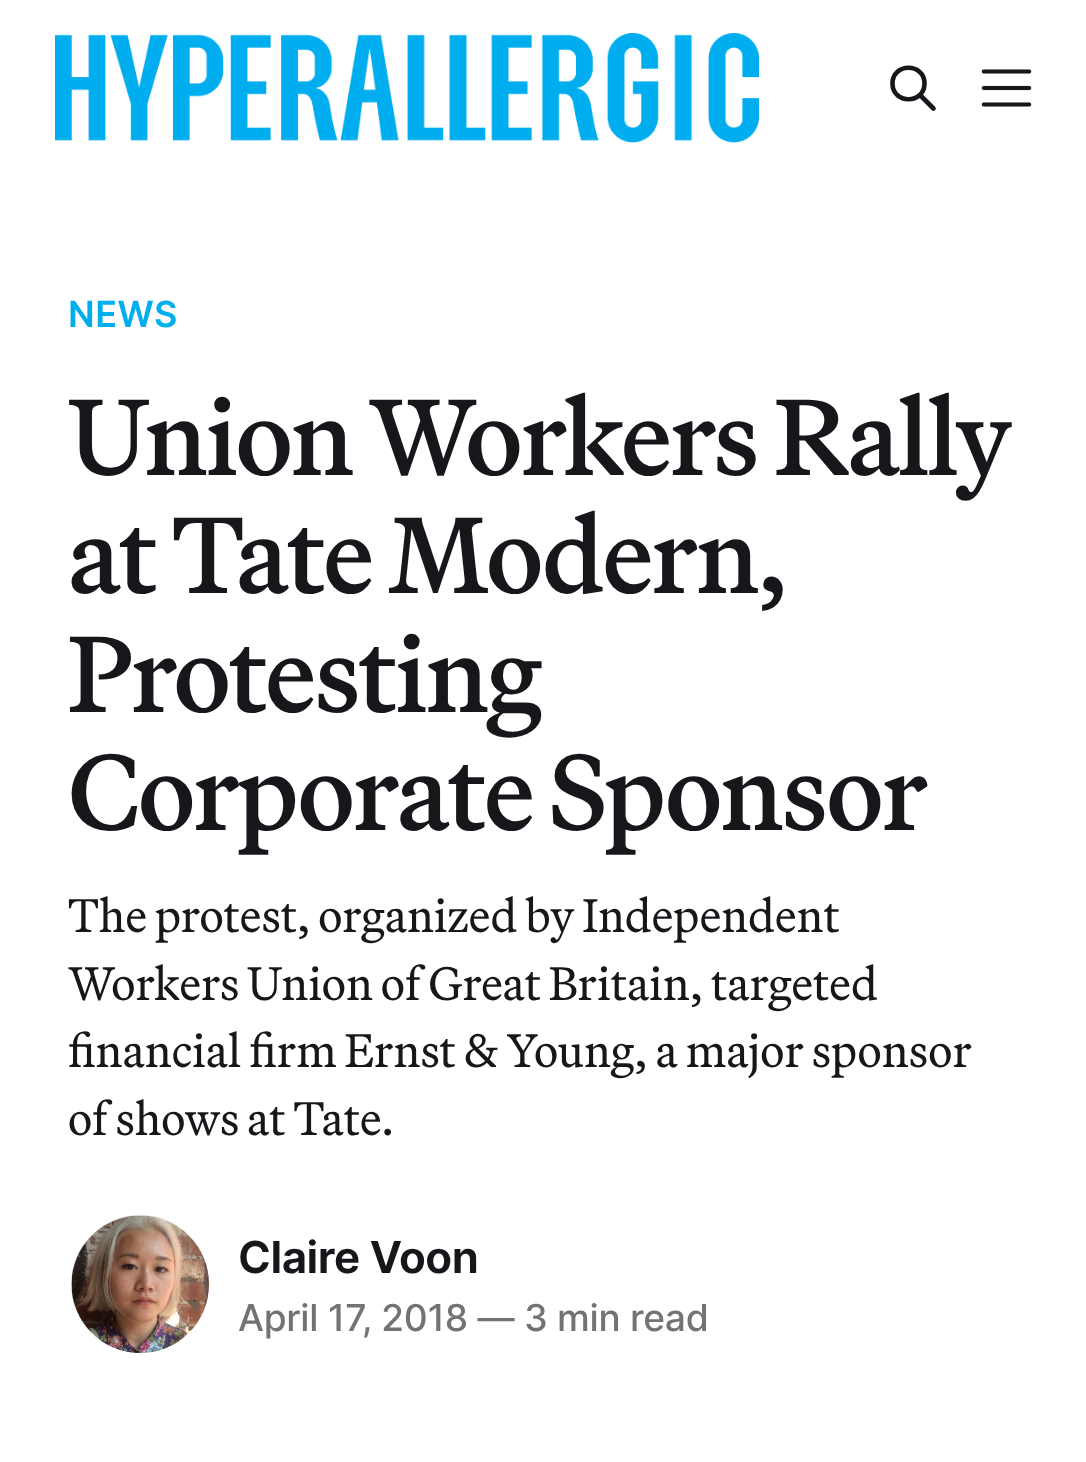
<!DOCTYPE html>
<meta charset="utf-8">
<style>body { margin: 0 } canvas { display: block }</style>
<canvas id="canvas" width="1086" height="1462"></canvas>
<img id="img1" src="images/1.png" hidden>
<img id="img2" src="images/2.png" hidden>
<img id="img3" src="images/3.png" hidden>
<script>
window.onload = function () {
    const canvas = document.getElementById('canvas');
    const context = canvas.getContext('2d');
    context.miterLimit = 4;
    context.fontKerning = 'normal';

    context.fillStyle = 'rgb(255, 255, 255)';
    context.fillRect(0, 0, 1086, 1462);
    context.drawImage(document.getElementById('img1'), 55, 33, 704, 110);
    context.beginPath();
    context.moveTo(933.5, 108.5);
    context.lineTo(920, 95);
    context.moveTo(924.5, 83.5);
    context.bezierCurveTo(924.5, 104.5, 892.5, 104.5, 892.5, 83.5);
    context.bezierCurveTo(892.5, 62.5, 924.5, 62.5, 924.5, 83.5);
    context.closePath();
    context.strokeStyle = 'rgb(21, 23, 26)';
    context.lineWidth = 4.6;
    context.lineCap = 'round';
    context.lineJoin = 'round';
    context.stroke();
    context.drawImage(document.getElementById('img2'), 981, 69, 51, 38);
    context.fillStyle = 'rgb(230, 230, 230)';
    context.beginPath();
    context.arc(140, 1284, 73, 0, 2 * Math.PI);
    context.fill();
    context.strokeStyle = 'rgb(255, 255, 255)';
    context.lineWidth = 8;
    context.stroke();
    context.drawImage(document.getElementById('img3'), 71, 1215, 138, 138);
    context.letterSpacing = '0.5px';
    context.font = '600 36px Inter';
    context.fillStyle = 'rgb(0, 174, 238)';
    context.fillText('NEWS', 68, 327);
    context.letterSpacing = '-2px';
    context.font = '500 107.5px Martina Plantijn';
    context.fillStyle = 'rgb(21, 23, 26)';
    context.fillText('Union Workers Rally', 68, 475);
    context.fillText('at Tate Modern,', 68, 593);
    context.fillText('Protesting', 68, 712);
    context.fillText('Corporate Sponsor', 68, 830);
    context.letterSpacing = '0px';
    context.font = '46.75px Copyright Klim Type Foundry';
    context.fillText('The protest, organized by Independent', 68, 932);
    context.fillText('Workers Union of Great Britain, targeted', 68, 1000);
    context.fillText('financial firm Ernst & Young, a major sponsor', 68, 1067);
    context.fillText('of shows at Tate.', 68, 1135);
    context.letterSpacing = '-0.5px';
    context.font = '600 44px "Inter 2"';
    context.fillText('Claire Voon', 238, 1273);
    context.letterSpacing = '-0.25px';
    context.font = '500 37.1px Inter';
    context.fillStyle = 'rgb(115, 115, 115)';
    context.fillText('April 17, 2018 — 3 min read', 238, 1331);
};
</script>
